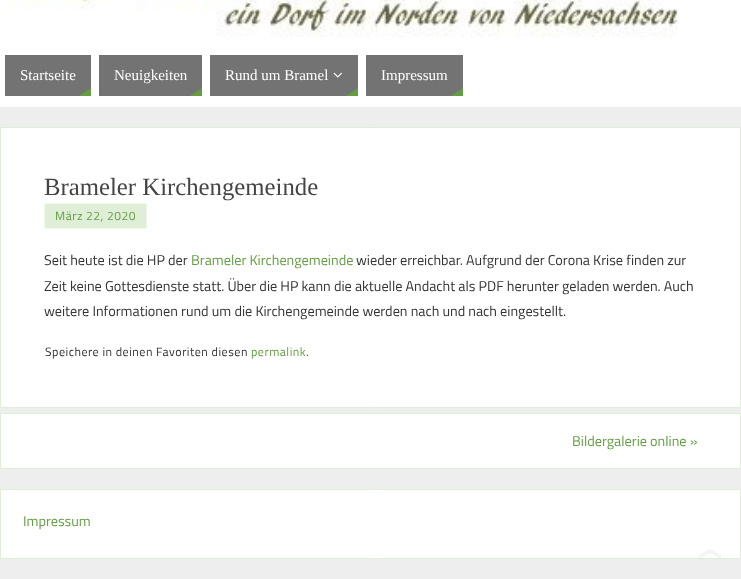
<!DOCTYPE html>
<meta charset="utf-8">
<style>body { margin: 0 } canvas { display: block }</style>
<canvas id="canvas" width="741" height="579"></canvas>
<img id="img1" src="images/1.png" hidden>
<img id="img2" src="images/2.png" hidden>
<img id="img3" src="images/3.png" hidden>
<script>
window.onload = function () {
    const canvas = document.getElementById('canvas');
    const context = canvas.getContext('2d');
    context.miterLimit = 4;
    context.fontKerning = 'normal';

    context.fillStyle = 'rgb(238, 238, 238)';
    context.fillRect(0, 0, 741, 579);
    context.fillStyle = 'rgb(255, 255, 255)';
    context.fillRect(0, 0, 741, 107);
    context.drawImage(document.getElementById('img1'), 7, 0, 672, 37);
    context.fillStyle = 'rgb(115, 115, 115)';
    context.fillRect(5, 55, 86, 41);
    context.fillStyle = 'rgb(99, 158, 67)';
    context.beginPath();
    context.moveTo(91, 96);
    context.lineTo(79, 96);
    context.lineTo(91, 88);
    context.closePath();
    context.fill();
    context.fillStyle = 'rgb(115, 115, 115)';
    context.fillRect(99, 55, 103, 41);
    context.fillStyle = 'rgb(99, 158, 67)';
    context.beginPath();
    context.moveTo(202, 96);
    context.lineTo(190, 96);
    context.lineTo(202, 88);
    context.closePath();
    context.fill();
    context.fillStyle = 'rgb(115, 115, 115)';
    context.fillRect(210, 55, 148, 41);
    context.drawImage(document.getElementById('img2'), 333, 72, 9, 6);
    context.fillStyle = 'rgb(99, 158, 67)';
    context.beginPath();
    context.moveTo(358, 96);
    context.lineTo(346, 96);
    context.lineTo(358, 88);
    context.closePath();
    context.fill();
    context.fillStyle = 'rgb(115, 115, 115)';
    context.fillRect(366, 55, 97, 41);
    context.fillStyle = 'rgb(99, 158, 67)';
    context.beginPath();
    context.moveTo(463, 96);
    context.lineTo(451, 96);
    context.lineTo(463, 88);
    context.closePath();
    context.fill();
    context.fillStyle = 'rgb(255, 255, 255)';
    context.beginPath();
    context.rect(0.5, 127.5, 740, 280);
    context.fill();
    context.strokeStyle = 'rgb(223, 238, 215)';
    context.stroke();
    context.fillStyle = 'rgb(223, 238, 215)';
    context.beginPath();
    context.rect(44.5, 203.5, 102, 25);
    context.fill();
    context.strokeStyle = 'rgb(241, 248, 237)';
    context.stroke();
    context.fillStyle = 'rgb(255, 255, 255)';
    context.beginPath();
    context.rect(0.5, 413.5, 740, 55);
    context.fill();
    context.strokeStyle = 'rgb(223, 238, 215)';
    context.stroke();
    context.beginPath();
    context.rect(0.5, 489.5, 740, 69);
    context.fill();
    context.stroke();
    context.drawImage(document.getElementById('img3'), 699, 549, 22, 10);
    context.font = '15px Liberation Serif';
    context.fillText('Startseite', 20, 80);
    context.fillText('Neuigkeiten', 114, 80);
    context.fillText('Rund um Bramel', 225, 80);
    context.fillText('Impressum', 381, 80);
    context.font = '24.75px Liberation Serif';
    context.fillStyle = 'rgb(68, 68, 68)';
    context.fillText('Brameler Kirchengemeinde', 44, 195);
    context.letterSpacing = '0.5px';
    context.font = '12.1px Titillium Web';
    context.fillStyle = 'rgb(99, 158, 67)';
    context.fillText('März 22, 2020', 55, 220);
    context.letterSpacing = '0px';
    context.font = '14.25px Titillium Web';
    context.fillStyle = 'rgb(51, 51, 51)';
    context.fillText('Seit heute ist die HP der', 44, 265);
    context.fillStyle = 'rgb(99, 158, 67)';
    context.fillText('Brameler Kirchengemeinde', 191, 265);
    context.fillStyle = 'rgb(51, 51, 51)';
    context.fillText('wieder erreichbar. Aufgrund der Corona Krise finden zur', 356, 265);
    context.fillText('Zeit keine Gottesdienste statt. Über die HP kann die aktuelle Andacht als PDF herunter geladen werden. Auch', 44, 291);
    context.fillText('weitere Informationen rund um die Kirchengemeinde werden nach und nach eingestellt.', 44, 316);
    context.letterSpacing = '0.5px';
    context.font = '12.1px Titillium Web';
    context.fillText('Speichere in deinen Favoriten diesen', 45, 356);
    context.fillStyle = 'rgb(99, 158, 67)';
    context.fillText('permalink', 251, 356);
    context.fillStyle = 'rgb(51, 51, 51)';
    context.fillText('.', 306, 356);
    context.letterSpacing = '0px';
    context.font = '14.25px Titillium Web';
    context.fillStyle = 'rgb(99, 158, 67)';
    context.fillText('Bildergalerie online »', 572, 446);
    context.fillText('Impressum', 23, 526);
};
</script>
